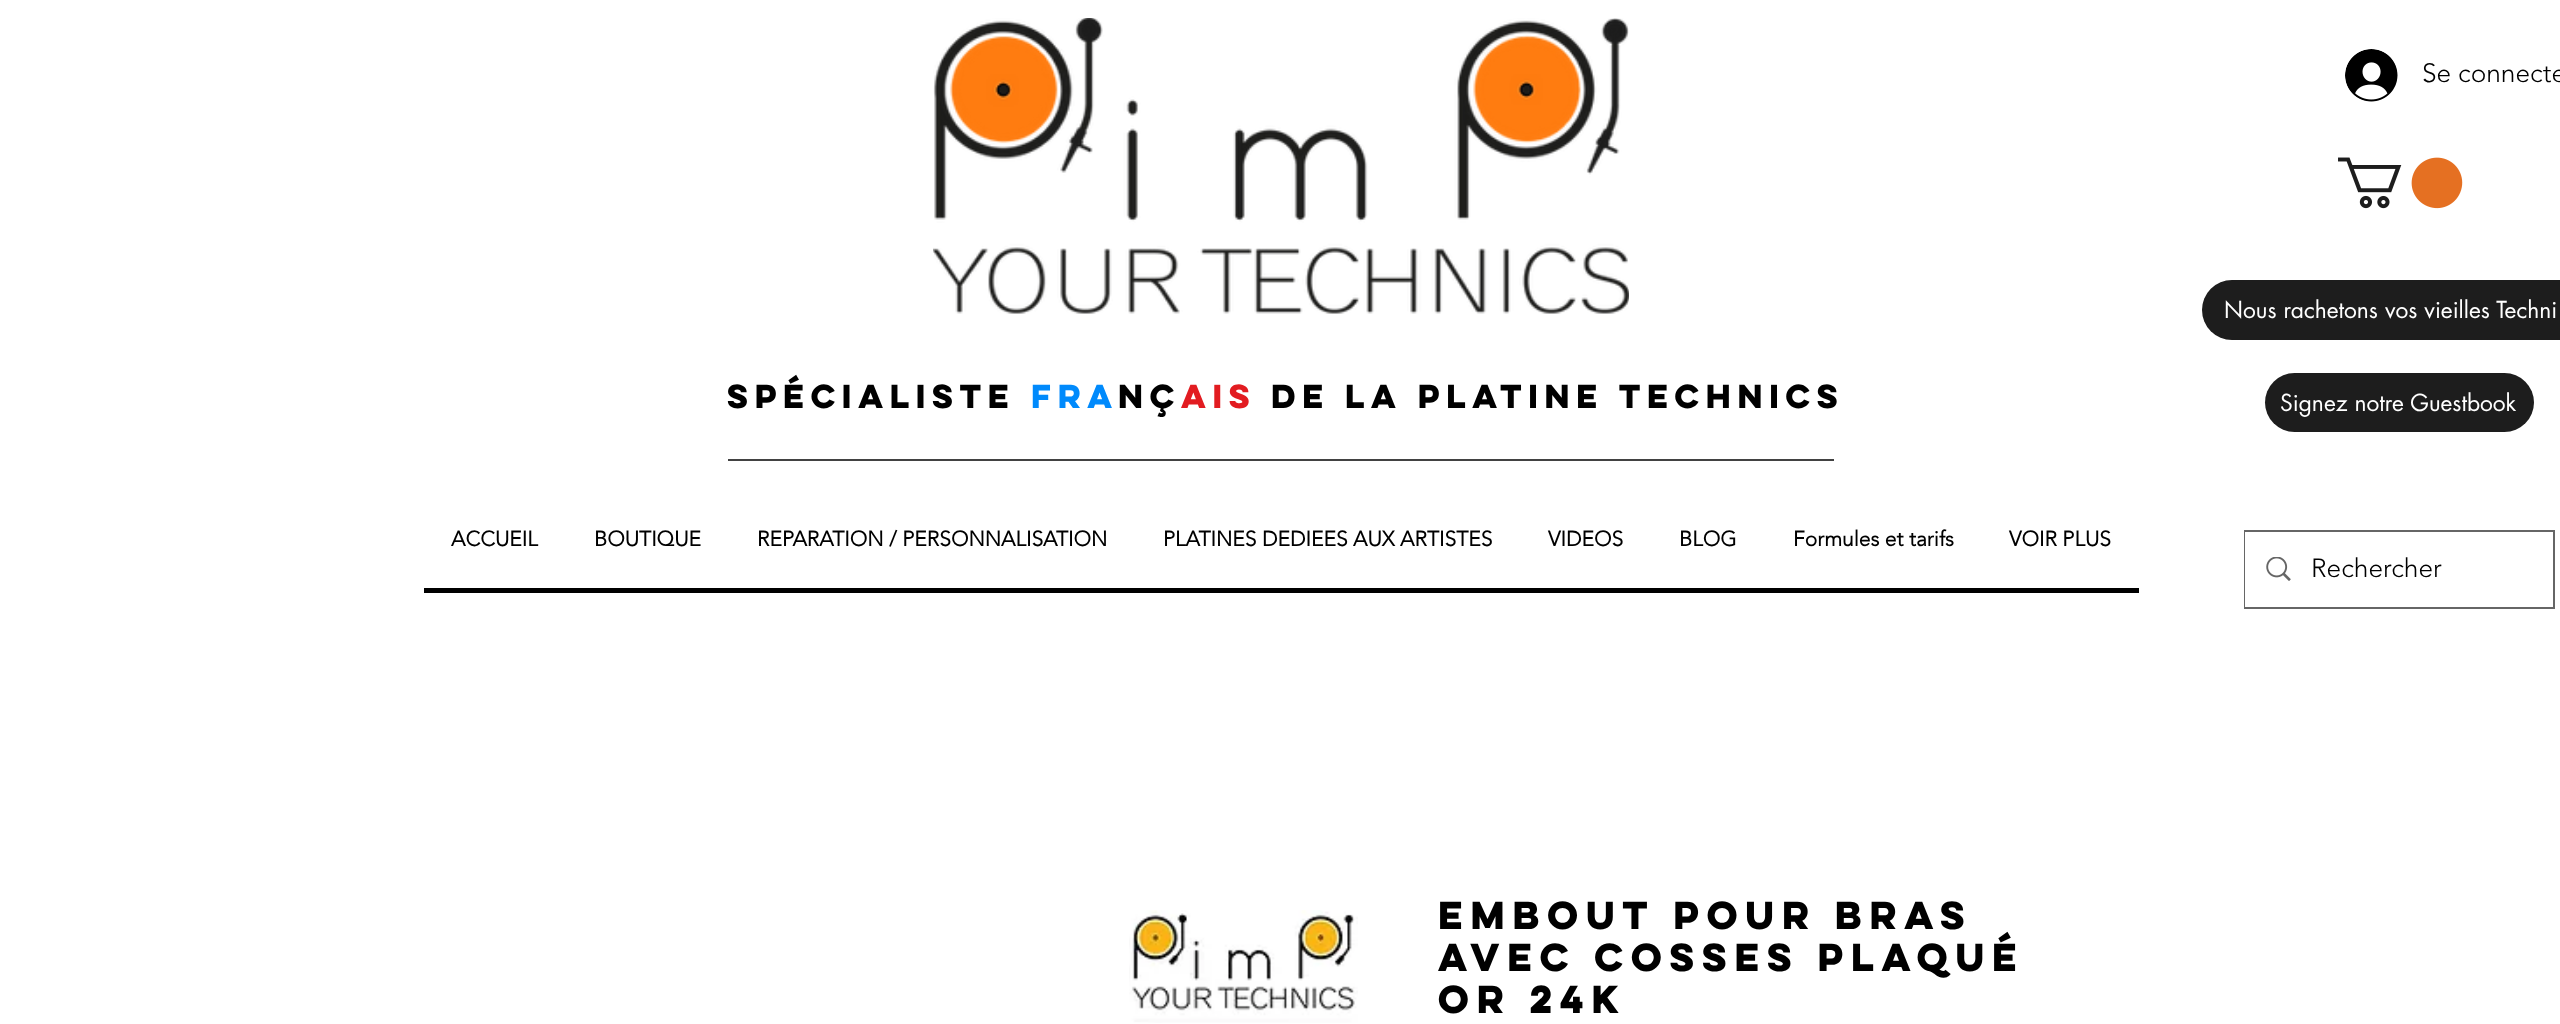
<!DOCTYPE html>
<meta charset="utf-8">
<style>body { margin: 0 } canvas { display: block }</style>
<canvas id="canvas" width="2560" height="1024"></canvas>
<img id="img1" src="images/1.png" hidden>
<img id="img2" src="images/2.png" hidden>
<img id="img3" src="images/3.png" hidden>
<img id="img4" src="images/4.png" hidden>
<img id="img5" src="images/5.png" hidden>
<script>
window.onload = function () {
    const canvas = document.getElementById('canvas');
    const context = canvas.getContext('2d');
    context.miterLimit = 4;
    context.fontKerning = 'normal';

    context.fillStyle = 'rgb(255, 255, 255)';
    context.fillRect(0, 0, 2560, 1024);
    context.drawImage(document.getElementById('img1'), 933, 18, 696, 296);
    context.drawImage(document.getElementById('img2'), 2345, 49, 53, 53);
    context.drawImage(document.getElementById('img3'), 2338, 157, 125, 52);
    context.fillStyle = 'rgb(29, 29, 29)';
    context.beginPath();
    context.roundRect(2202, 280, 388, 60, 30);
    context.fill();
    context.beginPath();
    context.roundRect(2265, 373, 269, 59, 29.5);
    context.fill();
    context.fillStyle = 'rgb(66, 66, 66)';
    context.fillRect(728, 459, 1106, 2);
    context.strokeStyle = 'rgb(102, 102, 102)';
    context.lineWidth = 2;
    context.strokeRect(2245, 531, 309, 77);
    context.fillStyle = 'rgb(255, 255, 255)';
    context.fillRect(2245, 532, 1, 75);
    context.drawImage(document.getElementById('img4'), 2266, 557, 25, 24);
    context.fillStyle = 'rgb(0, 0, 0)';
    context.fillRect(424, 588, 1715, 5);
    context.drawImage(document.getElementById('img5'), 1129, 910, 229, 113);
    context.font = '300 26.25px "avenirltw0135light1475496"';
    context.fillText('Se connecte', 2422, 82);
    context.font = '22.75px futura';
    context.fillStyle = 'rgb(255, 255, 255)';
    context.fillText('Nous rachetons vos vieilles Techni', 2224, 318);
    context.font = 'bold 29.75px "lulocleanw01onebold"';
    context.fillStyle = 'rgb(0, 0, 0)';
    context.fillText('Spécialiste', 727, 408);
    context.fillStyle = 'rgb(0, 138, 252)';
    context.fillText('fra', 1031, 408);
    context.fillStyle = 'rgb(0, 0, 0)';
    context.fillText('nç', 1118, 408);
    context.fillStyle = 'rgb(226, 28, 33)';
    context.fillText('ais', 1181, 408);
    context.fillStyle = 'rgb(0, 0, 0)';
    context.fillText('de la platine technics', 1271, 408);
    context.font = '22.75px futura';
    context.fillStyle = 'rgb(255, 255, 255)';
    context.fillText('Signez notre Guestbook', 2280, 411);
    context.font = 'bold 21px "avenirltw0135light1475496"';
    context.fillStyle = 'rgb(0, 0, 0)';
    context.fillText('ACCUEIL', 451, 546);
    context.fillText('BOUTIQUE', 594, 546);
    context.fillText('REPARATION / PERSONNALISATION', 757, 546);
    context.fillText('PLATINES DEDIEES AUX ARTISTES', 1163, 546);
    context.fillText('VIDEOS', 1548, 546);
    context.fillText('BLOG', 1679, 546);
    context.fillText('Formules et tarifs', 1793, 546);
    context.fillText('VOIR PLUS', 2009, 546);
    context.font = '300 26.25px "avenirltw0135light1475496"';
    context.fillText('Rechercher', 2311, 577);
    context.font = 'bold 35px "lulocleanw01onebold"';
    context.fillText('Embout pour bras', 1438, 929);
    context.fillText('avec cosses plaqué', 1438, 971);
    context.fillText('Or 24K', 1438, 1013);
};
</script>
